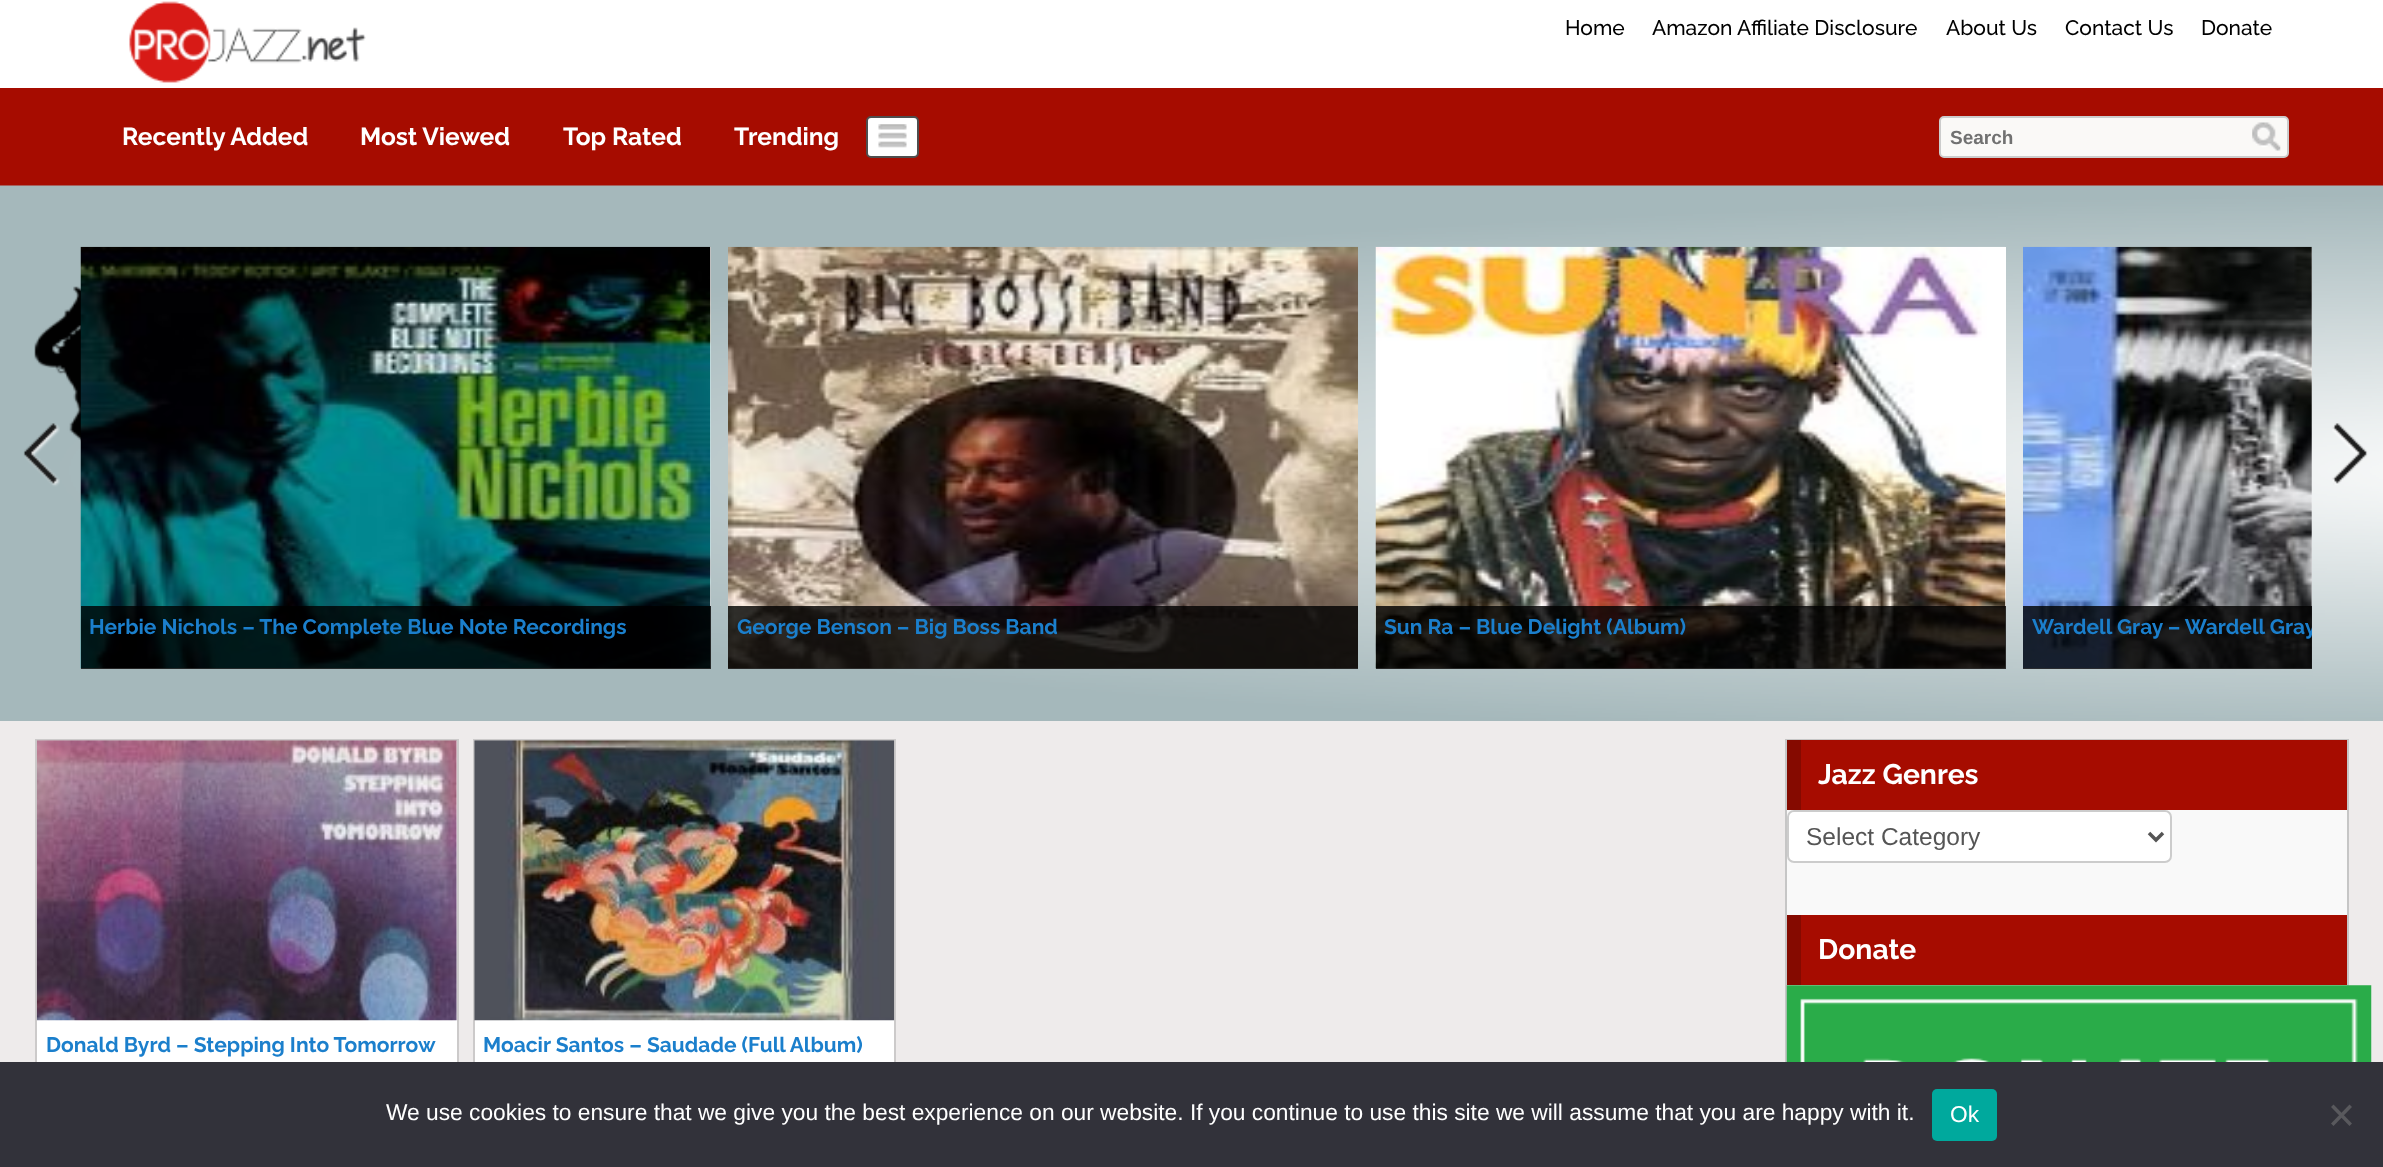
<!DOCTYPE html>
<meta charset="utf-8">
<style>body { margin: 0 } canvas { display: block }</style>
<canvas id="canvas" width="2383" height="1167"></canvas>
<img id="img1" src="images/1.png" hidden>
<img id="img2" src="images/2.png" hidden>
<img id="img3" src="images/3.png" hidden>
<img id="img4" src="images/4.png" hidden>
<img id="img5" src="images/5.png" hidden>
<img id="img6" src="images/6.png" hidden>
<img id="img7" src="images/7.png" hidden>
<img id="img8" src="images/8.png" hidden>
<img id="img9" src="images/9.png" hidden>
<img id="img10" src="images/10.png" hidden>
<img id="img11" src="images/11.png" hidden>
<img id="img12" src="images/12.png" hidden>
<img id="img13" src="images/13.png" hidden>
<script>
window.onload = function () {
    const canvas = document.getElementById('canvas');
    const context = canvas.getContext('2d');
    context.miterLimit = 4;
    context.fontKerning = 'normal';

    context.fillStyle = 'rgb(238, 235, 235)';
    context.fillRect(0, 0, 2383, 1167);
    context.fillStyle = 'rgb(255, 255, 255)';
    context.fillRect(0, 0, 2383, 88);
    context.drawImage(document.getElementById('img1'), 129, 1, 237, 82);
    context.fillStyle = 'rgb(166, 12, 0)';
    context.fillRect(0, 88, 2383, 98);
    context.fillStyle = 'rgb(255, 255, 255)';
    context.beginPath();
    context.roundRect(867, 117, 51, 40, 4);
    context.fill();
    context.strokeStyle = 'rgb(78, 78, 78)';
    context.lineWidth = 2;
    context.stroke();
    context.drawImage(document.getElementById('img2'), 878, 124, 29, 24);
    context.fillStyle = 'rgb(250, 249, 247)';
    context.beginPath();
    context.roundRect(1940, 117, 348, 40, 4);
    context.fill();
    context.strokeStyle = 'rgb(204, 204, 204)';
    context.stroke();
    context.drawImage(document.getElementById('img3'), 2252, 122, 29, 29);
    context.drawImage(document.getElementById('img4'), 0, 185, 2383, 536);
    context.drawImage(document.getElementById('img5'), 23, 423, 37, 64);
    context.drawImage(document.getElementById('img6'), 2332, 423, 36, 62);
    context.fillStyle = 'rgb(255, 255, 255)';
    context.fillRect(81, 247, 630, 422);
    context.drawImage(document.getElementById('img7'), 80, 246, 631, 423);
    context.fillStyle = 'rgba(0, 0, 0, 0.81)';
    context.fillRect(81, 606, 630, 63);
    context.fillStyle = 'rgb(255, 255, 255)';
    context.fillRect(728, 668, 630, 1);
    context.drawImage(document.getElementById('img8'), 728, 246, 630, 423);
    context.fillStyle = 'rgba(0, 0, 0, 0.81)';
    context.fillRect(728, 606, 630, 63);
    context.fillStyle = 'rgb(255, 255, 255)';
    context.fillRect(1376, 247, 630, 422);
    context.drawImage(document.getElementById('img9'), 1375, 246, 631, 423);
    context.fillStyle = 'rgba(0, 0, 0, 0.81)';
    context.fillRect(1376, 606, 630, 63);
    context.fillStyle = 'rgb(255, 255, 255)';
    context.fillRect(2023, 247, 289, 422);
    context.drawImage(document.getElementById('img10'), 2023, 246, 289, 423);
    context.fillStyle = 'rgba(0, 0, 0, 0.81)';
    context.fillRect(2023, 606, 289, 63);
    context.fillStyle = 'rgb(249, 249, 249)';
    context.fillRect(1787, 810, 560, 176);
    context.strokeStyle = 'rgb(198, 198, 198)';
    context.strokeRect(1786, 740, 562, 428);
    context.fillStyle = 'rgb(166, 12, 0)';
    context.fillRect(1801, 740, 546, 70);
    context.fillStyle = 'rgb(133, 10, 0)';
    context.fillRect(1787, 740, 14, 70);
    context.fillStyle = 'rgb(255, 255, 255)';
    context.beginPath();
    context.roundRect(1788, 811, 383, 51, 6);
    context.fill();
    context.strokeStyle = 'rgb(204, 204, 204)';
    context.stroke();
    context.beginPath();
    context.moveTo(2149, 833);
    context.lineTo(2156, 840);
    context.lineTo(2163, 833);
    context.strokeStyle = 'rgb(85, 85, 85)';
    context.lineWidth = 3.5;
    context.stroke();
    context.fillStyle = 'rgb(166, 12, 0)';
    context.fillRect(1801, 915, 546, 70);
    context.fillStyle = 'rgb(133, 10, 0)';
    context.fillRect(1787, 915, 14, 70);
    context.drawImage(document.getElementById('img11'), 1786, 985, 586, 77);
    context.fillStyle = 'rgb(255, 255, 255)';
    context.fillRect(37, 741, 420, 321);
    context.strokeStyle = 'rgb(204, 202, 202)';
    context.lineWidth = 2;
    context.strokeRect(36, 740, 422, 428);
    context.drawImage(document.getElementById('img12'), 36, 740, 421, 281);
    context.fillRect(475, 1020, 419, 42);
    context.strokeRect(474, 740, 421, 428);
    context.drawImage(document.getElementById('img13'), 474, 740, 421, 281);
    context.fillStyle = 'rgb(50, 50, 58)';
    context.fillRect(0, 1062, 2383, 105);
    context.fillStyle = 'rgb(0, 169, 157)';
    context.beginPath();
    context.roundRect(1932, 1089, 65, 52, 5);
    context.fill();
    context.fillStyle = 'rgb(89, 89, 93)';
    context.beginPath();
    context.moveTo(2349.5, 1104.5);
    context.lineTo(2352, 1107);
    context.lineTo(2333.5, 1126);
    context.lineTo(2331, 1123.5);
    context.closePath();
    context.fill();
    context.beginPath();
    context.moveTo(2331, 1107);
    context.lineTo(2333.5, 1104.5);
    context.lineTo(2352, 1123.5);
    context.lineTo(2349.5, 1126);
    context.closePath();
    context.fill();
    context.font = '500 21px Raleway';
    context.fillStyle = 'rgb(0, 0, 0)';
    context.fillText('Home', 1565, 35);
    context.fillText('Amazon Affiliate Disclosure', 1652, 35);
    context.fillText('About Us', 1946, 35);
    context.fillText('Contact Us', 2065, 35);
    context.fillText('Donate', 2201, 35);
    context.font = 'bold 24.5px Raleway';
    context.fillStyle = 'rgb(255, 255, 255)';
    context.fillText('Recently Added', 122, 145);
    context.fillText('Most Viewed', 360, 145);
    context.fillText('Top Rated', 563, 145);
    context.fillText('Trending', 734, 145);
    context.font = 'bold 19px Liberation Sans';
    context.fillStyle = 'rgb(113, 113, 113)';
    context.fillText('Search', 1950, 144);
    context.font = 'bold 21px Raleway';
    context.fillStyle = 'rgb(27, 127, 204)';
    context.fillText('Herbie Nichols – The Complete Blue Note Recordings', 89, 634);
    context.fillText('George Benson – Big Boss Band', 737, 634);
    context.fillText('Sun Ra – Blue Delight (Album)', 1384, 634);
    context.save();
    context.beginPath();
    context.rect(2023, 606, 289, 63);
    context.clip();
    context.fillText('Wardell Gray – Wardell Gray', 2032, 634);
    context.restore();
    context.font = 'bold 28.25px Raleway';
    context.fillStyle = 'rgb(255, 255, 255)';
    context.fillText('Jazz Genres', 1818, 784);
    context.font = '24.5px Liberation Sans';
    context.fillStyle = 'rgb(85, 85, 85)';
    context.fillText('Select Category', 1806, 845);
    context.font = 'bold 28.25px Raleway';
    context.fillStyle = 'rgb(255, 255, 255)';
    context.fillText('Donate', 1818, 959);
    context.font = 'bold 21px Raleway';
    context.fillStyle = 'rgb(27, 127, 204)';
    context.fillText('Donald Byrd – Stepping Into Tomorrow', 46, 1052);
    context.fillText('Moacir Santos – Saudade (Full Album)', 483, 1052);
    context.font = '22.75px Liberation Sans';
    context.fillStyle = 'rgb(255, 255, 255)';
    context.fillText('We use cookies to ensure that we give you the best experience on our website. If you continue to use this site we will assume that you are happy with it.', 386, 1120);
    context.fillText('Ok', 1950, 1122);
};
</script>
